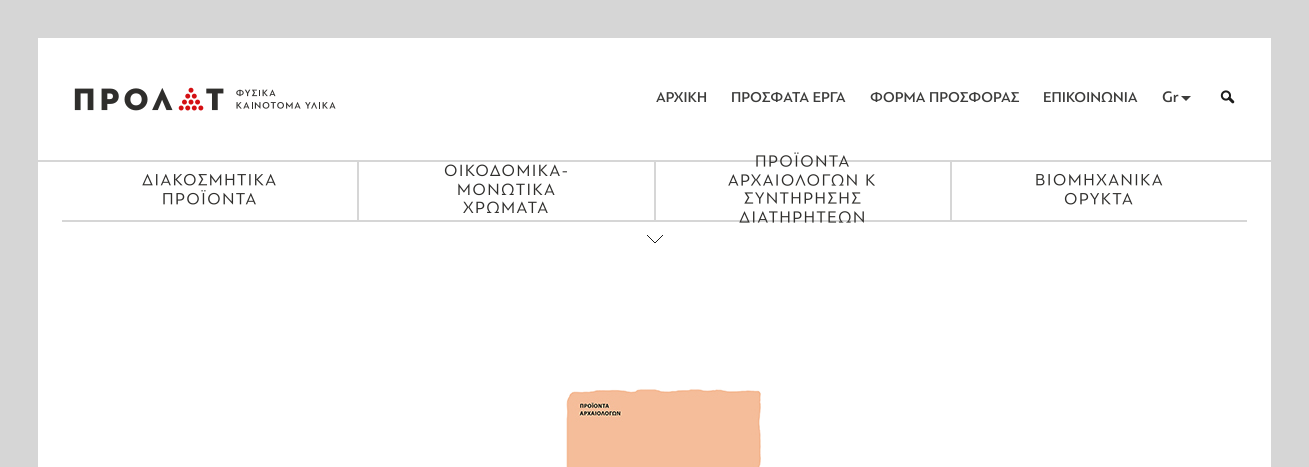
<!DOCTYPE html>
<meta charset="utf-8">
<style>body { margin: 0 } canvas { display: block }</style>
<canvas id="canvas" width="1309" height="467"></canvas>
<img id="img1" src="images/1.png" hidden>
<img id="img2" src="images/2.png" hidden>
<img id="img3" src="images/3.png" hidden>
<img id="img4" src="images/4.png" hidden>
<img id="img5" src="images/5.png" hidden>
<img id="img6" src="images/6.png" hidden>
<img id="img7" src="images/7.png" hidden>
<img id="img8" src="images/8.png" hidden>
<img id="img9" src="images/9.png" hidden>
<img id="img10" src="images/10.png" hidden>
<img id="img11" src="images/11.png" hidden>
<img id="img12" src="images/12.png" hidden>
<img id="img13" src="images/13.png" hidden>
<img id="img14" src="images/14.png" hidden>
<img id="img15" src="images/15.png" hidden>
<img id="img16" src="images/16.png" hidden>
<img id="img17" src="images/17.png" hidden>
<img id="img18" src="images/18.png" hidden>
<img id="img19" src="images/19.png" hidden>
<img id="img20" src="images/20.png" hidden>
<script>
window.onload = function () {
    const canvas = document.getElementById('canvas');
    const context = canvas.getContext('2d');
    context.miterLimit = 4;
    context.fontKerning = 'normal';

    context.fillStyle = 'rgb(255, 255, 255)';
    context.fillRect(0, 0, 1309, 467);
    context.strokeStyle = 'rgb(214, 214, 214)';
    context.lineWidth = 38;
    context.strokeRect(19, 19, 1271, 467);
    context.fillStyle = 'rgb(214, 214, 214)';
    context.fillRect(38, 160, 1233, 2);
    context.drawImage(document.getElementById('img1'), 74, 87, 150, 24);
    context.drawImage(document.getElementById('img2'), 236, 89, 100, 20);
    context.drawImage(document.getElementById('img3'), 656, 92, 51, 10);
    context.drawImage(document.getElementById('img4'), 732, 91, 114, 12);
    context.drawImage(document.getElementById('img5'), 870, 91, 150, 12);
    context.drawImage(document.getElementById('img6'), 1044, 91, 94, 12);
    context.drawImage(document.getElementById('img7'), 1162, 91, 17, 12);
    context.fillStyle = 'rgb(60, 60, 59)';
    context.beginPath();
    context.moveTo(1181, 96);
    context.lineTo(1191, 96);
    context.lineTo(1186, 101);
    context.closePath();
    context.fill();
    context.drawImage(document.getElementById('img8'), 1220, 90, 15, 14);
    context.fillStyle = 'rgb(214, 214, 214)';
    context.fillRect(62, 220, 1185, 2);
    context.fillRect(357, 162, 2, 58);
    context.drawImage(document.getElementById('img9'), 142, 173, 134, 13);
    context.drawImage(document.getElementById('img10'), 163, 190, 93, 15);
    context.fillRect(654, 162, 2, 58);
    context.drawImage(document.getElementById('img11'), 444, 164, 123, 13);
    context.drawImage(document.getElementById('img12'), 458, 183, 97, 13);
    context.drawImage(document.getElementById('img13'), 463, 201, 85, 12);
    context.fillRect(950, 162, 2, 58);
    context.drawImage(document.getElementById('img14'), 756, 152, 93, 15);
    context.drawImage(document.getElementById('img15'), 728, 174, 147, 12);
    context.drawImage(document.getElementById('img16'), 744, 192, 117, 12);
    context.drawImage(document.getElementById('img17'), 739, 211, 125, 12);
    context.drawImage(document.getElementById('img18'), 1036, 173, 127, 13);
    context.drawImage(document.getElementById('img19'), 1064, 192, 69, 13);
    context.beginPath();
    context.moveTo(647, 235);
    context.lineTo(655, 243);
    context.lineTo(663, 235);
    context.strokeStyle = 'rgb(28, 28, 27)';
    context.lineWidth = 1;
    context.stroke();
    context.drawImage(document.getElementById('img20'), 566, 388, 195, 79);
};
</script>
